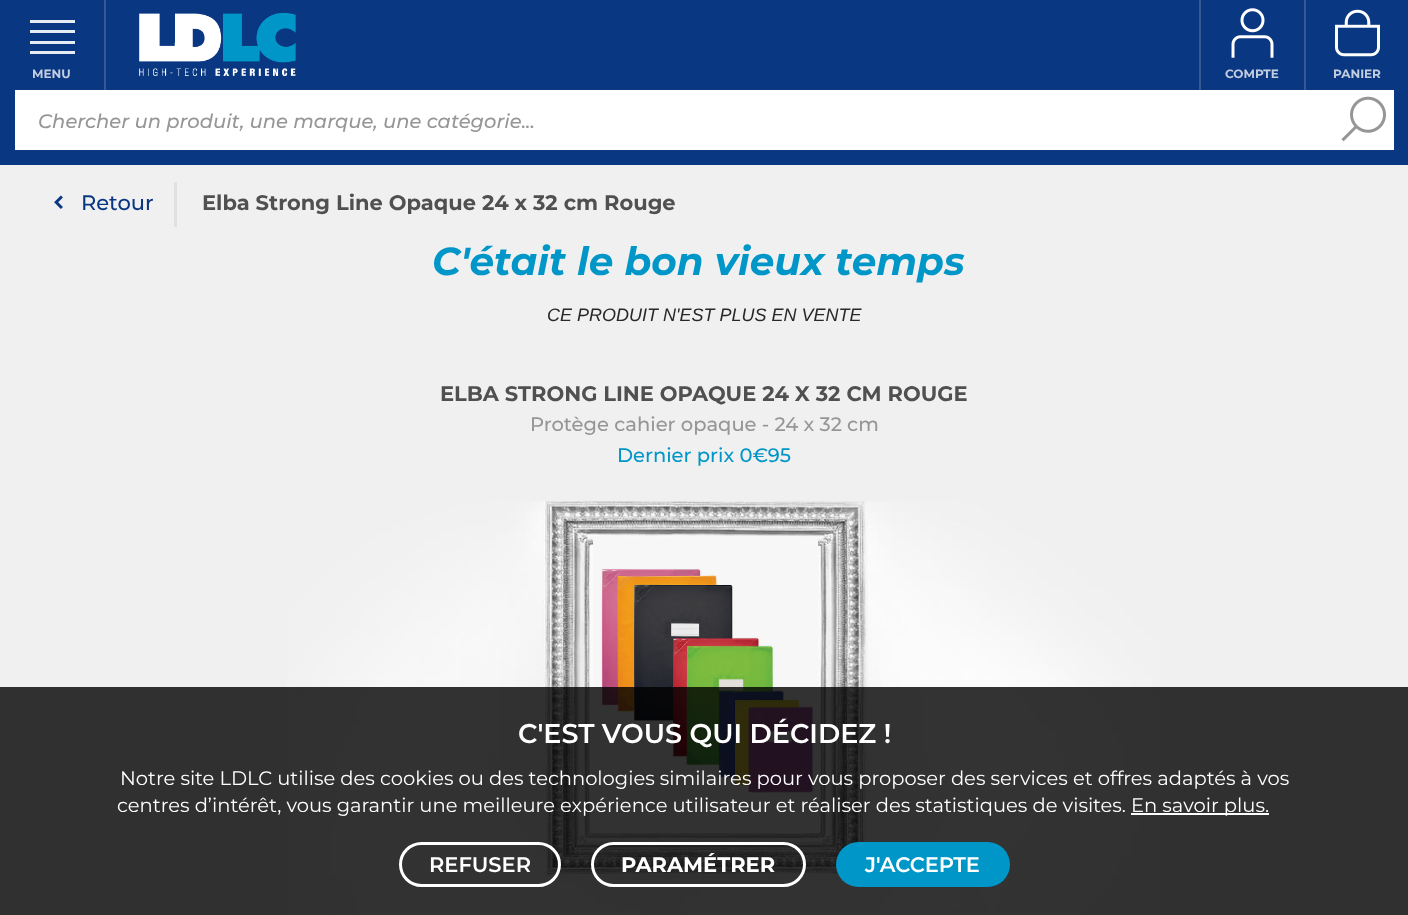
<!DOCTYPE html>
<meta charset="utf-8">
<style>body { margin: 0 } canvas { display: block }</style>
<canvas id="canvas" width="1408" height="915"></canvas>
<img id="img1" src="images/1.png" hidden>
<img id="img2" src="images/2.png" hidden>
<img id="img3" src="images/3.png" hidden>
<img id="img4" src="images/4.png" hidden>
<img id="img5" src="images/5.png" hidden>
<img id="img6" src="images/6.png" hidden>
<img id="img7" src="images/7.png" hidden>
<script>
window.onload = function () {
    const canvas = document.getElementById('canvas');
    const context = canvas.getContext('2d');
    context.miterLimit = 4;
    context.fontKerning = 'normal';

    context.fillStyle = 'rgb(240, 240, 240)';
    context.fillRect(0, 0, 1408, 915);
    context.fillStyle = 'rgb(10, 55, 130)';
    context.fillRect(0, 0, 1408, 90);
    context.fillStyle = 'rgb(53, 90, 146)';
    context.fillRect(104, 0, 2, 90);
    context.fillStyle = 'rgb(231, 235, 243)';
    context.fillRect(30, 20, 45, 3);
    context.fillRect(30, 51, 45, 3);
    context.fillRect(30, 30, 45, 3);
    context.fillRect(30, 41, 45, 3);
    context.drawImage(document.getElementById('img1'), 139, 13, 157, 63);
    context.fillStyle = 'rgb(53, 90, 146)';
    context.fillRect(1199, 0, 2, 90);
    context.drawImage(document.getElementById('img2'), 1231, 8, 43, 50);
    context.fillRect(1304, 0, 2, 90);
    context.drawImage(document.getElementById('img3'), 1335, 9, 45, 48);
    context.fillStyle = 'rgb(10, 55, 130)';
    context.fillRect(1394, 90, 14, 60);
    context.fillRect(15, 150, 1393, 15);
    context.fillRect(0, 90, 15, 75);
    context.fillStyle = 'rgb(255, 255, 255)';
    context.fillRect(15, 90, 1379, 60);
    context.drawImage(document.getElementById('img4'), 1341, 96, 45, 46);
    context.drawImage(document.getElementById('img5'), 54, 195, 9, 14);
    context.fillStyle = 'rgb(225, 225, 225)';
    context.fillRect(174, 182, 3, 45);
    context.drawImage(document.getElementById('img6'), 287, 501, 872, 414);
    context.fillStyle = 'rgb(255, 255, 255)';
    context.fillRect(593, 537, 225, 287);
    context.drawImage(document.getElementById('img7'), 600, 568, 214, 225);
    context.fillStyle = 'rgba(0, 0, 0, 0.03)';
    context.fillRect(593, 537, 225, 287);
    context.fillStyle = 'rgba(0, 0, 0, 0.8)';
    context.fillRect(0, 687, 1408, 228);
    context.fillStyle = 'rgb(255, 255, 255)';
    context.fillRect(1131, 813, 138, 2);
    context.beginPath();
    context.roundRect(400.5, 843.5, 159, 42, 21);
    context.strokeStyle = 'rgb(255, 255, 255)';
    context.lineWidth = 3;
    context.stroke();
    context.beginPath();
    context.roundRect(592.5, 843.5, 212, 42, 21);
    context.stroke();
    context.fillStyle = 'rgb(0, 150, 200)';
    context.beginPath();
    context.roundRect(836, 842, 174, 45, 22.5);
    context.fill();
    context.font = 'bold 12px Montserrat';
    context.fillStyle = 'rgb(194, 205, 224)';
    context.fillText('MENU', 32, 78);
    context.fillText('COMPTE', 1225, 78);
    context.fillText('PANIER', 1333, 78);
    context.font = 'italic 500 19.5px Montserrat';
    context.fillStyle = 'rgb(150, 150, 150)';
    context.fillText('Chercher un produit, une marque, une catégorie...', 38, 128);
    context.font = '500 21px Montserrat';
    context.fillStyle = 'rgb(10, 55, 130)';
    context.fillText('Retour', 81, 210);
    context.font = 'bold 21px Montserrat';
    context.fillStyle = 'rgb(80, 80, 80)';
    context.fillText('Elba Strong Line Opaque 24 x 32 cm Rouge', 202, 210);
    context.font = 'italic bold 39px Montserrat';
    context.fillStyle = 'rgb(0, 150, 200)';
    context.fillText('C\'était le bon vieux temps', 432, 275);
    context.font = 'italic 18px Liberation Sans';
    context.fillStyle = 'rgb(40, 40, 40)';
    context.fillText('CE PRODUIT N\'EST PLUS EN VENTE', 547, 321);
    context.font = 'bold 21px Montserrat';
    context.fillStyle = 'rgb(80, 80, 80)';
    context.fillText('ELBA STRONG LINE OPAQUE 24 X 32 CM ROUGE', 440, 401);
    context.font = '500 19.5px Montserrat';
    context.fillStyle = 'rgb(150, 150, 150)';
    context.fillText('Protège cahier opaque - 24 x 32 cm', 530, 431);
    context.fillStyle = 'rgb(0, 150, 200)';
    context.fillText('Dernier prix 0€95', 617, 462);
    context.font = '600 27px Montserrat';
    context.fillStyle = 'rgb(255, 255, 255)';
    context.fillText('C\'EST VOUS QUI DÉCIDEZ !', 518, 743);
    context.font = '19.5px Montserrat';
    context.fillText('Notre site LDLC utilise des cookies ou des technologies similaires pour vous proposer des services et offres adaptés à vos', 120, 785);
    context.fillText('centres d’intérêt, vous garantir une meilleure expérience utilisateur et réaliser des statistiques de visites.', 117, 812);
    context.fillText('En savoir plus.', 1131, 812);
    context.font = '600 21px Montserrat';
    context.fillText('REFUSER', 429, 872);
    context.font = 'bold 21px Montserrat';
    context.fillText('PARAMÉTRER', 621, 872);
    context.font = '600 21px Montserrat';
    context.fillText('J\'ACCEPTE', 865, 872);
};
</script>
